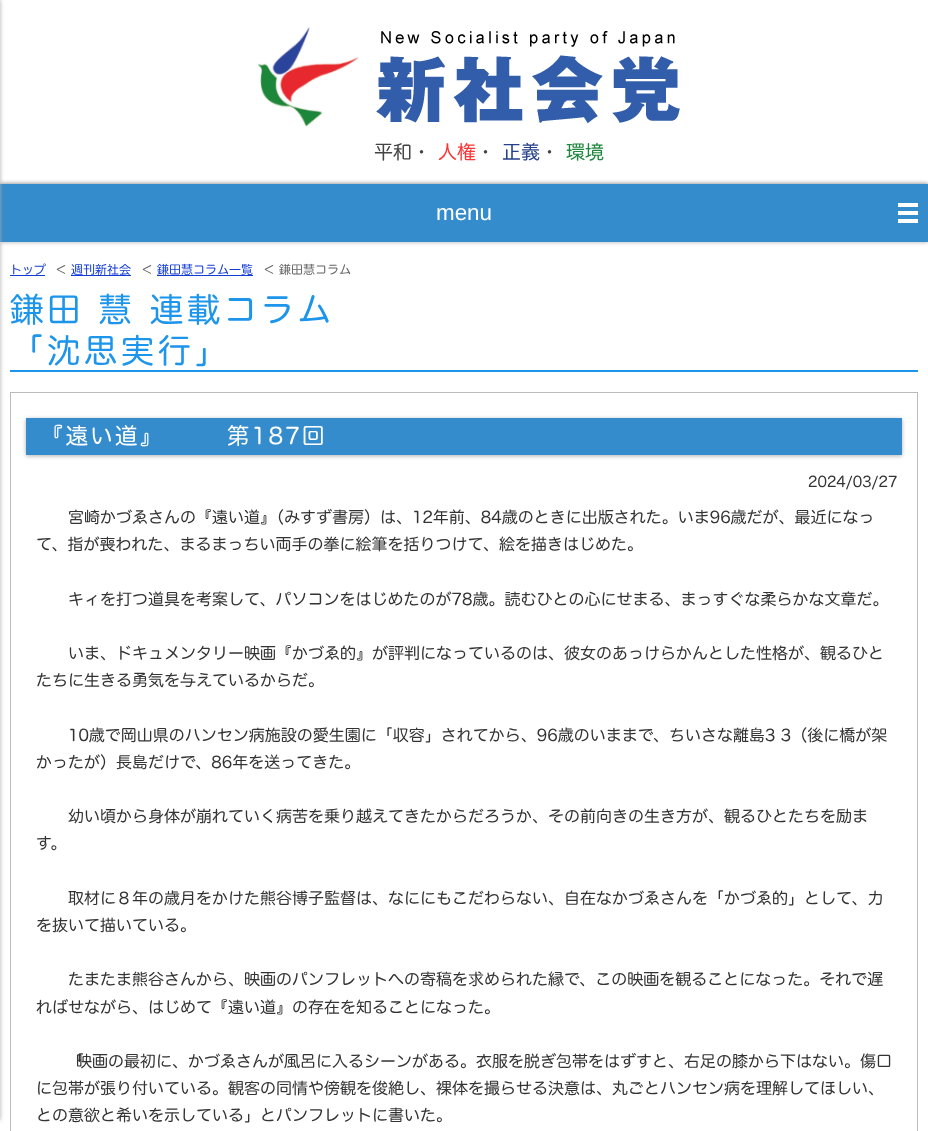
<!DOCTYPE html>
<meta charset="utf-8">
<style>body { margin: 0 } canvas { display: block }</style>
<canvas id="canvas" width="928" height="1131"></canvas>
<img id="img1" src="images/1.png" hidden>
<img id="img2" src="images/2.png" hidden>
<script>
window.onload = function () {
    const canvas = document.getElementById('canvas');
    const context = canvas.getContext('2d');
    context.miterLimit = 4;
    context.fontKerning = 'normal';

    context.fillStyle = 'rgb(255, 255, 255)';
    context.fillRect(0, 0, 928, 1131);
    context.drawImage(document.getElementById('img1'), 258, 27, 101, 100);
    context.drawImage(document.getElementById('img2'), 376, 31, 304, 93);
    context.fillStyle = 'rgb(170, 170, 170)';
    context.filter = 'blur(2px)';
    context.beginPath();
    context.rect(0, 184, 928, 50);
    context.fill();
    context.filter = 'none';
    context.filter = 'blur(2px)';
    context.beginPath();
    context.rect(0, 184, 928, 58);
    context.fill();
    context.filter = 'none';
    context.fillStyle = 'rgb(52, 140, 204)';
    context.fillRect(0, 184, 928, 58);
    context.fillStyle = 'rgb(170, 170, 170)';
    context.filter = 'blur(2px)';
    context.beginPath();
    context.rect(-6, 0, 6, 1120);
    context.fill();
    context.filter = 'none';
    context.fillStyle = 'rgb(255, 255, 255)';
    context.fillRect(898, 203, 20, 20);
    context.fillStyle = 'rgb(52, 140, 204)';
    context.fillRect(898, 207, 20, 4);
    context.fillRect(898, 215, 20, 4);
    context.fillStyle = 'rgb(18, 59, 213)';
    context.fillRect(10, 275, 35, 1);
    context.fillRect(71, 275, 60, 1);
    context.fillRect(157, 275, 96, 1);
    context.fillStyle = 'rgb(29, 149, 234)';
    context.fillRect(10, 370, 908, 2);
    context.strokeStyle = 'rgb(187, 187, 187)';
    context.strokeRect(10.5, 392.5, 907, 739);
    context.fillStyle = 'rgba(0, 0, 0, 0.31)';
    context.filter = 'blur(2px)';
    context.beginPath();
    context.rect(26, 419, 876, 37);
    context.fill();
    context.filter = 'none';
    context.fillStyle = 'rgb(52, 140, 204)';
    context.fillRect(26, 418, 876, 37);
    context.font = '19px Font';
    context.fillStyle = 'rgb(68, 68, 68)';
    context.fillText('平和・', 374, 159);
    context.fillStyle = 'rgb(250, 53, 53)';
    context.fillText('人権', 438, 159);
    context.fillStyle = 'rgb(68, 68, 68)';
    context.fillText('・', 476, 159);
    context.fillStyle = 'rgb(38, 64, 139)';
    context.fillText('正義', 502, 159);
    context.fillStyle = 'rgb(68, 68, 68)';
    context.fillText('・', 540, 159);
    context.fillStyle = 'rgb(31, 134, 61)';
    context.fillText('環境', 566, 159);
    context.font = '22.4px Liberation Sans';
    context.fillStyle = 'rgb(255, 255, 255)';
    context.fillText('menu', 436, 220);
    context.font = '12px Font';
    context.fillStyle = 'rgb(18, 59, 213)';
    context.fillText('トップ', 10, 274);
    context.fillStyle = 'rgb(102, 102, 102)';
    context.fillText('＜', 55, 274);
    context.fillStyle = 'rgb(18, 59, 213)';
    context.fillText('週刊新社会', 71, 274);
    context.fillStyle = 'rgb(102, 102, 102)';
    context.fillText('＜', 141, 274);
    context.fillStyle = 'rgb(18, 59, 213)';
    context.fillText('鎌田慧コラム一覧', 157, 274);
    context.fillStyle = 'rgb(102, 102, 102)';
    context.fillText('＜ 鎌田慧コラム', 263, 274);
    context.letterSpacing = '3.4px';
    context.font = '33.5px Font';
    context.fillStyle = 'rgb(29, 149, 234)';
    context.fillText('鎌田 慧 連載コラム', 10, 322);
    context.fillText('「沈思実行」', 10, 363);
    context.letterSpacing = '2.25px';
    context.font = '22.4px Font';
    context.fillStyle = 'rgb(255, 255, 255)';
    context.fillText('『遠い道』　　　第187回', 41, 444);
    context.letterSpacing = '0px';
    context.font = '14.5px Font';
    context.fillStyle = 'rgb(51, 51, 51)';
    context.fillText('2024/03/27', 808, 487);
    context.font = '16px Font';
    context.fillText('宮崎かづゑさんの『遠い道』（みすず書房）は、12年前、84歳のときに出版された。いま96歳だが、最近になっ', 68, 523);
    context.fillText('て、指が喪われた、まるまっちい両手の拳に絵筆を括りつけて、絵を描きはじめた。', 36, 550);
    context.fillText('キィを打つ道具を考案して、パソコンをはじめたのが78歳。読むひとの心にせまる、まっすぐな柔らかな文章だ。', 68, 605);
    context.fillText('いま、ドキュメンタリー映画『かづゑ的』が評判になっているのは、彼女のあっけらかんとした性格が、観るひと', 68, 659);
    context.fillText('たちに生きる勇気を与えているからだ。', 36, 686);
    context.fillText('10歳で岡山県のハンセン病施設の愛生園に「収容」されてから、96歳のいままで、ちいさな離島3 3（後に橋が架', 68, 741);
    context.fillText('かったが）長島だけで、86年を送ってきた。', 36, 768);
    context.fillText('幼い頃から身体が崩れていく病苦を乗り越えてきたからだろうか、その前向きの生き方が、観るひとたちを励ま', 68, 822);
    context.fillText('す。', 36, 849);
    context.fillText('取材に８年の歳月をかけた熊谷博子監督は、なににもこだわらない、自在なかづゑさんを「かづゑ的」として、力', 68, 904);
    context.fillText('を抜いて描いている。', 36, 931);
    context.fillText('たまたま熊谷さんから、映画のパンフレットへの寄稿を求められた縁で、この映画を観ることになった。それで遅', 68, 985);
    context.fillText('ればせながら、はじめて『遠い道』の存在を知ることになった。', 36, 1013);
    context.fillText('「', 68, 1067);
    context.fillText('映画の最初に、かづゑさんが風呂に入るシーンがある。衣服を脱ぎ包帯をはずすと、右足の膝から下はない。傷口', 76, 1067);
    context.fillText('に包帯が張り付いている。観客の同情や傍観を俊絶し、裸体を撮らせる決意は、丸ごとハンセン病を理解してほしい、', 36, 1094);
    context.fillText('との意欲と希いを示している」とパンフレットに書いた。', 36, 1121);
};
</script>
